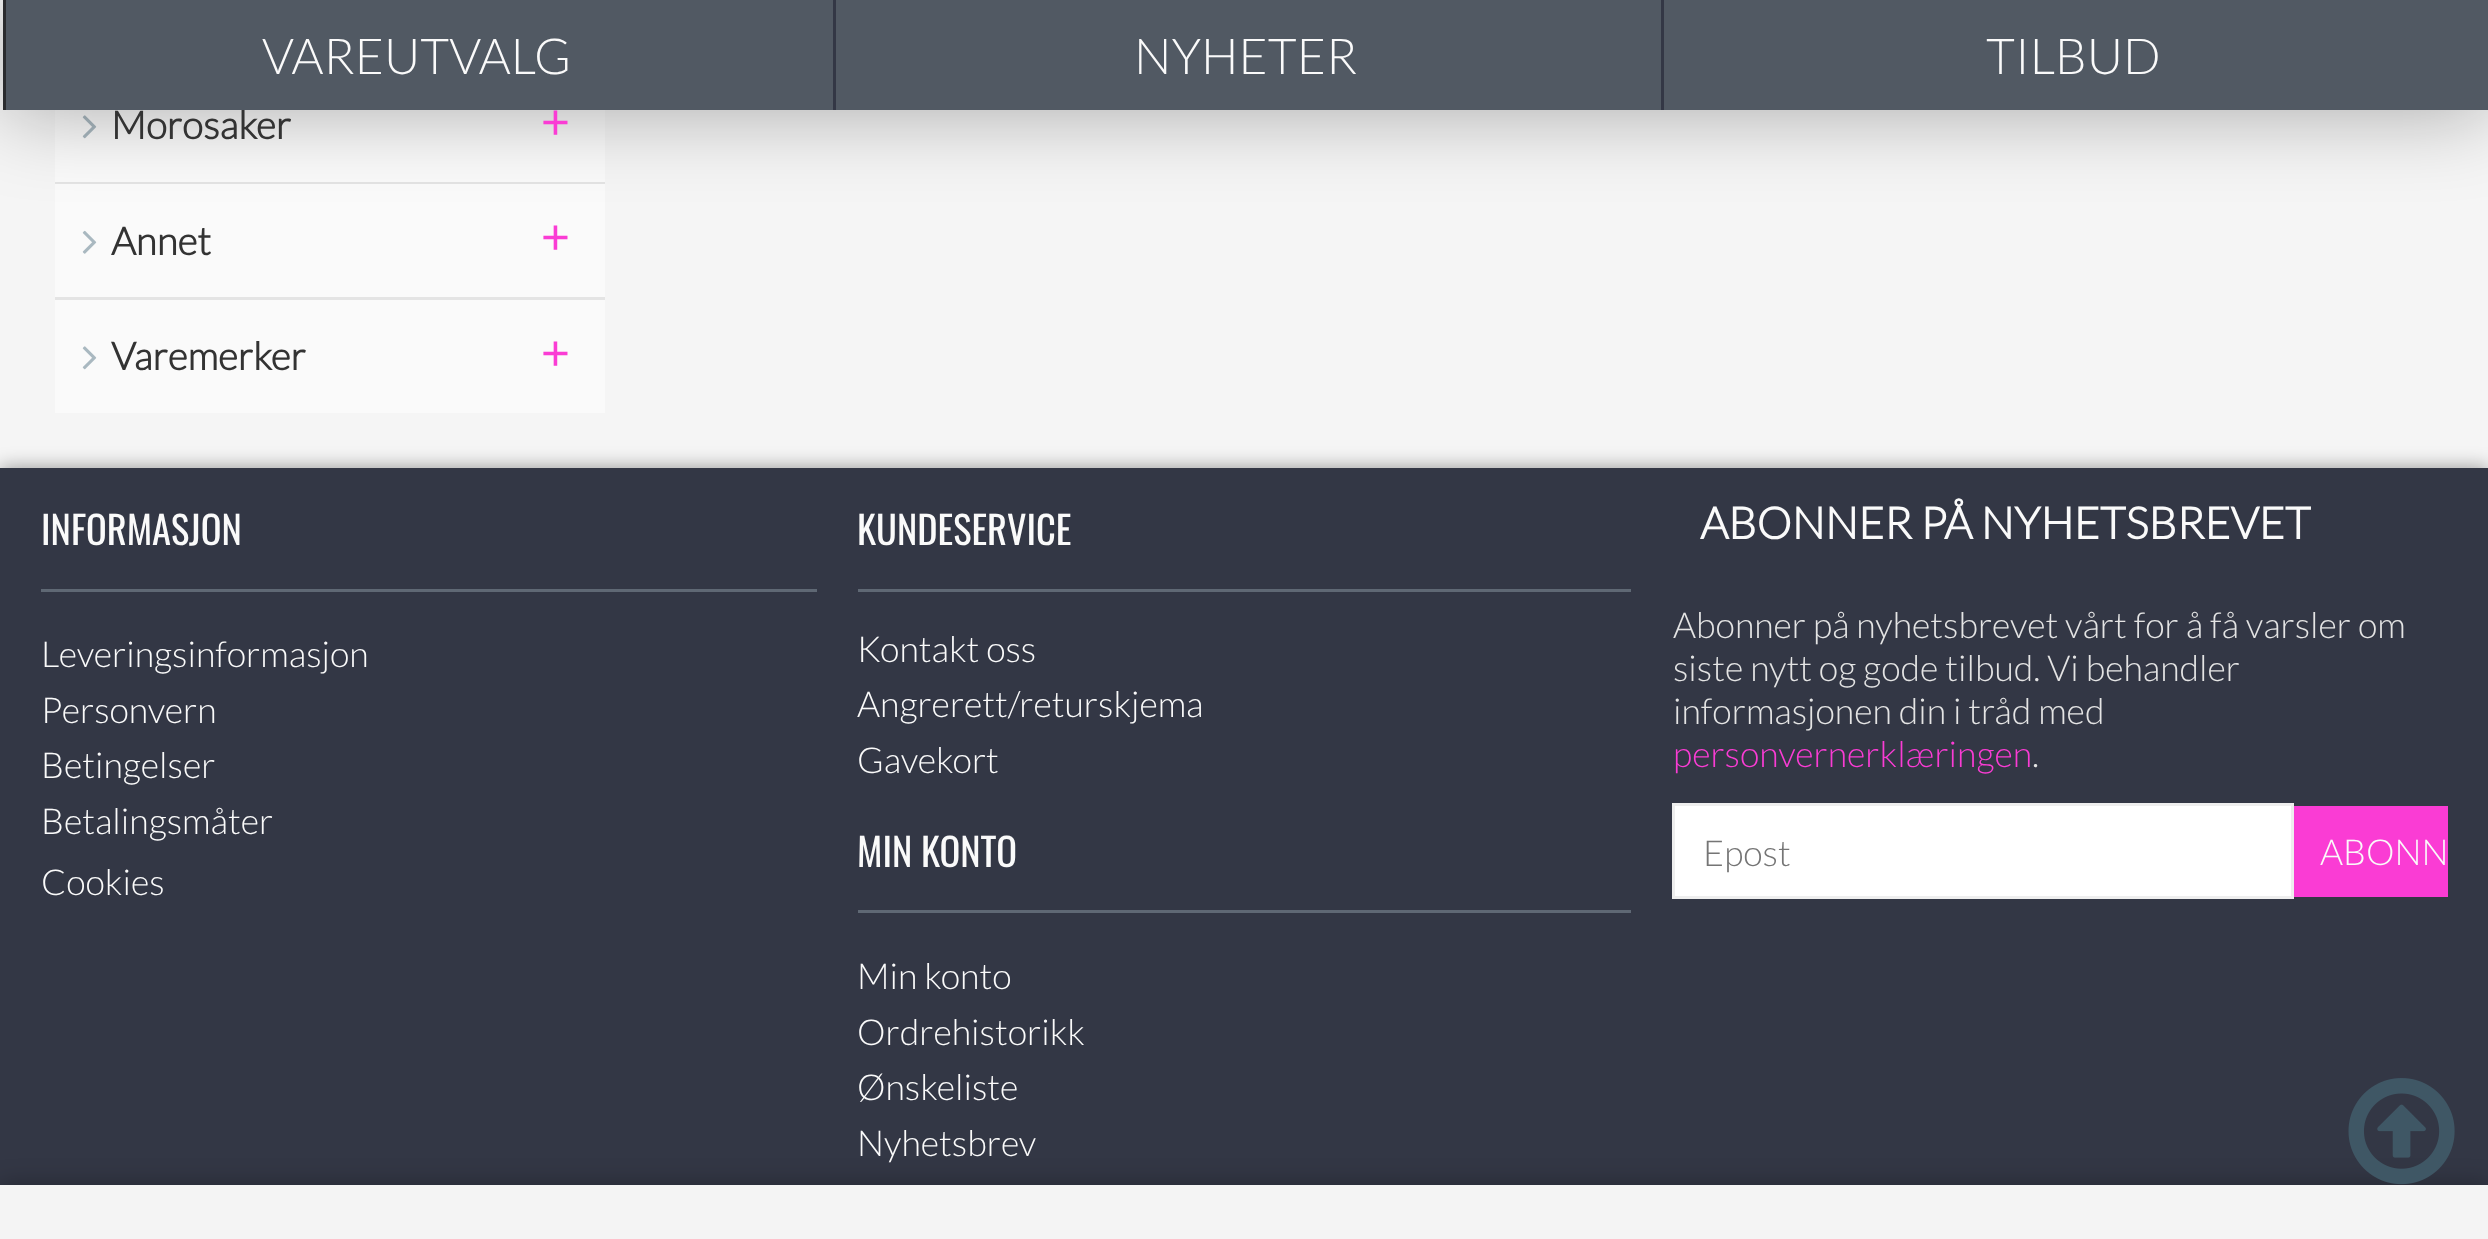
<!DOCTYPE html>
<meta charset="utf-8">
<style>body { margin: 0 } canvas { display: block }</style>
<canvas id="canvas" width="2488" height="1239"></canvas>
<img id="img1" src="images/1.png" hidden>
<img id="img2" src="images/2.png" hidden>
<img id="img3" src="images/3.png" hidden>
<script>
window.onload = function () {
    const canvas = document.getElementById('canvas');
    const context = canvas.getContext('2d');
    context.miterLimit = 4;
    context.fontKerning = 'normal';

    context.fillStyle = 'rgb(245, 245, 245)';
    context.fillRect(0, 0, 2488, 1239);
    context.fillStyle = 'rgb(250, 250, 250)';
    context.fillRect(55, 110, 550, 303);
    context.fillStyle = 'rgb(228, 228, 228)';
    context.fillRect(55, 182, 550, 2);
    context.drawImage(document.getElementById('img1'), 82, 115, 15, 24);
    context.drawImage(document.getElementById('img2'), 82, 230, 15, 24);
    context.fillStyle = 'rgba(0, 0, 0, 0.3)';
    context.filter = 'blur(41px)';
    context.beginPath();
    context.rect(3, 3, 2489, 110);
    context.fill();
    context.filter = 'none';
    context.fillStyle = 'rgb(81, 89, 99)';
    context.fillRect(6, 0, 2482, 110);
    context.fillStyle = 'rgb(42, 43, 46)';
    context.fillRect(3, 0, 3, 110);
    context.fillStyle = 'rgb(51, 55, 69)';
    context.fillRect(833, 0, 3, 110);
    context.fillRect(1661, 0, 3, 110);
    context.fillStyle = 'rgb(228, 228, 228)';
    context.fillRect(55, 297, 550, 3);
    context.drawImage(document.getElementById('img1'), 82, 346, 15, 24);
    context.fillStyle = 'rgba(0, 0, 0, 0.4)';
    context.filter = 'blur(9.5px)';
    context.beginPath();
    context.rect(0, 468, 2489, 717);
    context.fill();
    context.filter = 'none';
    context.fillStyle = 'rgb(51, 55, 69)';
    context.fillRect(0, 468, 2488, 717);
    context.fillStyle = 'rgb(95, 104, 116)';
    context.fillRect(41, 589, 776, 3);
    context.fillRect(858, 589, 773, 3);
    context.fillRect(858, 910, 773, 3);
    context.fillStyle = 'rgb(255, 255, 255)';
    context.beginPath();
    context.rect(1673.5, 804.5, 619, 93);
    context.fill();
    context.strokeStyle = 'rgb(238, 238, 238)';
    context.lineWidth = 3;
    context.stroke();
    context.fillStyle = 'rgb(250, 60, 212)';
    context.fillRect(2294, 806, 154, 91);
    context.fillStyle = 'rgba(0, 0, 0, 0.3)';
    context.filter = 'blur(12.5px)';
    context.beginPath();
    context.rect(0, 1185, 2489, 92);
    context.fill();
    context.filter = 'none';
    context.fillStyle = 'rgb(244, 244, 244)';
    context.fillRect(0, 1185, 2488, 54);
    context.drawImage(document.getElementById('img3'), 2348, 1078, 107, 107);
    context.font = '300 49.5px Lato';
    context.fillStyle = 'rgb(250, 250, 250)';
    context.fillText('VAREUTVALG', 262, 74);
    context.fillText('NYHETER', 1134, 74);
    context.fillText('TILBUD', 1986, 74);
    context.font = 'bold 38.5px Lato';
    context.fillStyle = 'rgb(51, 51, 51)';
    context.fillText('Morosaker', 111, 139);
    context.font = '49.5px Liberation Sans';
    context.fillStyle = 'rgb(250, 60, 212)';
    context.fillText('+', 541, 139);
    context.font = 'bold 38.5px Lato';
    context.fillStyle = 'rgb(51, 51, 51)';
    context.fillText('Annet', 111, 255);
    context.font = '49.5px Liberation Sans';
    context.fillStyle = 'rgb(250, 60, 212)';
    context.fillText('+', 541, 254);
    context.font = 'bold 38.5px Lato';
    context.fillStyle = 'rgb(51, 51, 51)';
    context.fillText('Varemerker', 111, 370);
    context.font = '49.5px Liberation Sans';
    context.fillStyle = 'rgb(250, 60, 212)';
    context.fillText('+', 541, 370);
    context.font = '38.5px Oswald';
    context.fillStyle = 'rgb(250, 250, 250)';
    context.fillText('INFORMASJON', 41, 545);
    context.font = '300 35.75px Lato';
    context.fillText('Leveringsinformasjon', 41, 667);
    context.fillText('Personvern', 41, 723);
    context.fillText('Betingelser', 41, 778);
    context.fillText('Betalingsmåter', 41, 834);
    context.fillText('Cookies', 41, 895);
    context.font = '38.5px Oswald';
    context.fillText('KUNDESERVICE', 857, 545);
    context.font = '300 35.75px Lato';
    context.fillText('Kontakt oss', 857, 662);
    context.fillText('Angrerett/returskjema', 857, 717);
    context.fillText('Gavekort', 857, 773);
    context.font = '38.5px Oswald';
    context.fillText('MIN KONTO', 857, 867);
    context.font = '300 35.75px Lato';
    context.fillText('Min konto', 857, 989);
    context.fillText('Ordrehistorikk', 857, 1045);
    context.fillText('Ønskeliste', 857, 1100);
    context.fillText('Nyhetsbrev', 857, 1156);
    context.font = 'bold 44px Lato';
    context.fillText('ABONNER PÅ NYHETSBREVET', 1700, 539);
    context.font = '300 35.75px Lato';
    context.fillStyle = 'rgb(228, 228, 228)';
    context.fillText('Abonner på nyhetsbrevet vårt for å få varsler om', 1673, 638);
    context.fillText('siste nytt og gode tilbud. Vi behandler', 1673, 681);
    context.fillText('informasjonen din i tråd med', 1673, 724);
    context.fillStyle = 'rgb(250, 60, 212)';
    context.fillText('personvernerklæringen', 1673, 767);
    context.fillStyle = 'rgb(228, 228, 228)';
    context.fillText('.', 2032, 767);
    context.fillStyle = 'rgb(117, 117, 117)';
    context.fillText('Epost', 1703, 866);
    context.fillStyle = 'rgb(250, 250, 250)';
    context.fillText('ABONN', 2320, 865);
};
</script>
